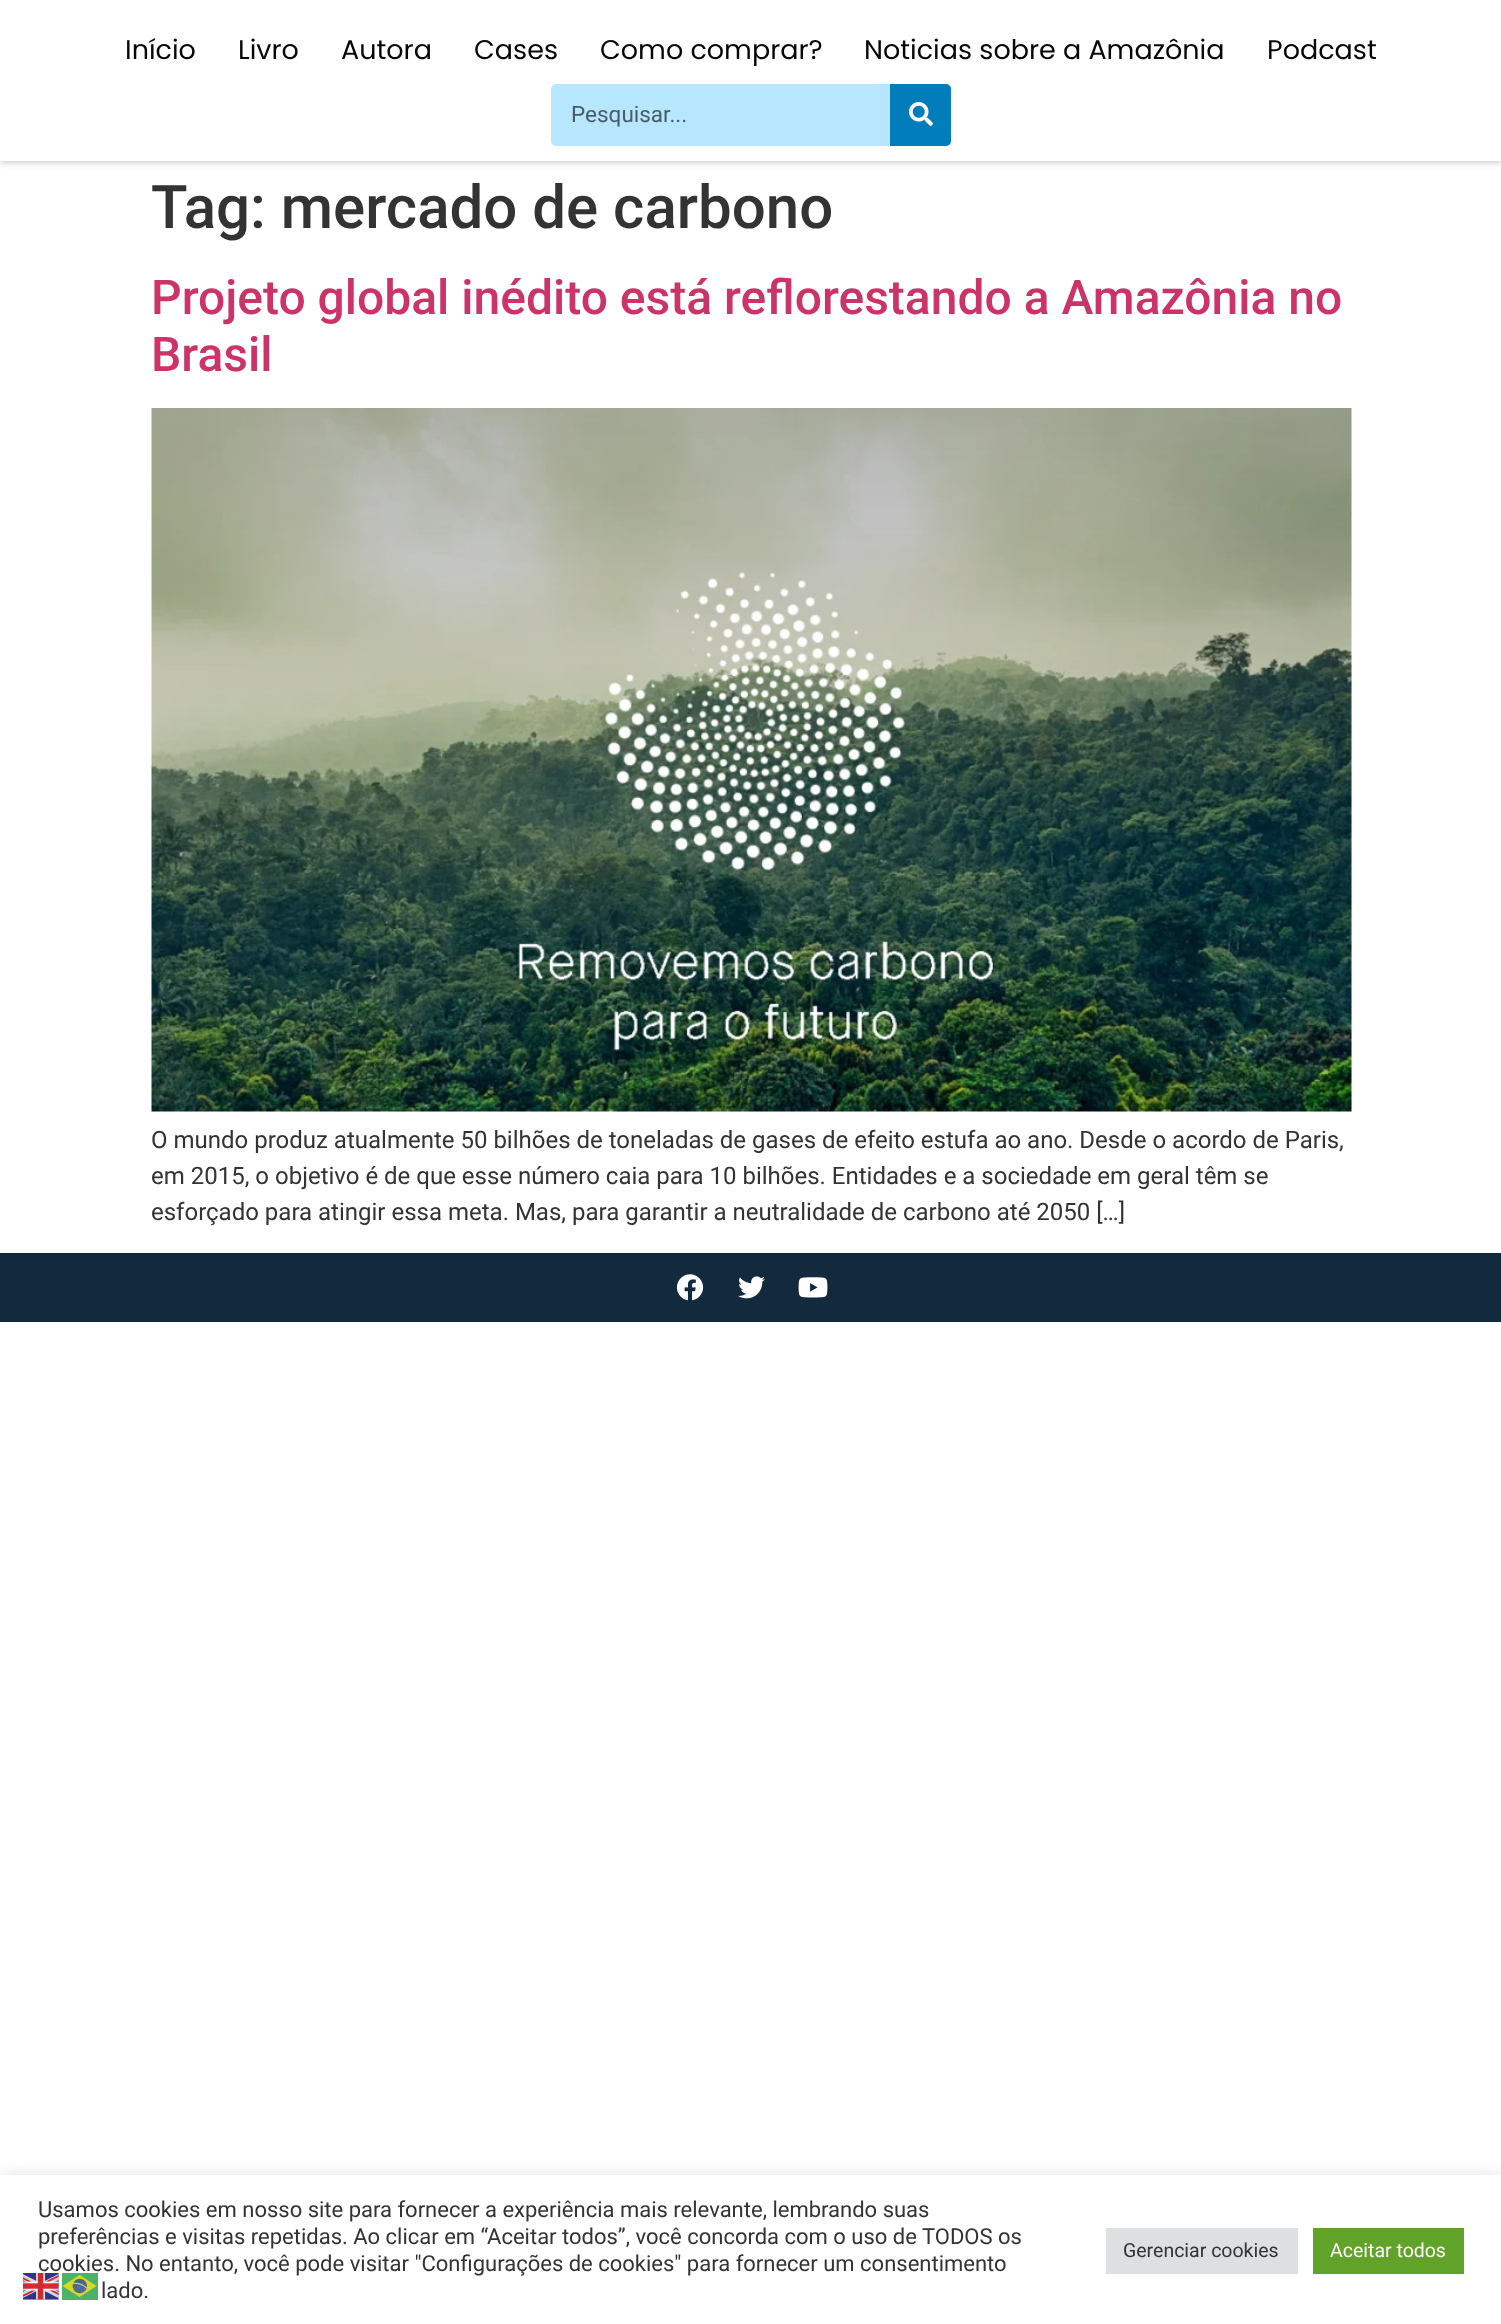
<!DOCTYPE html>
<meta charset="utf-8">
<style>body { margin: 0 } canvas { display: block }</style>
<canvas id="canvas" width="1501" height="2324"></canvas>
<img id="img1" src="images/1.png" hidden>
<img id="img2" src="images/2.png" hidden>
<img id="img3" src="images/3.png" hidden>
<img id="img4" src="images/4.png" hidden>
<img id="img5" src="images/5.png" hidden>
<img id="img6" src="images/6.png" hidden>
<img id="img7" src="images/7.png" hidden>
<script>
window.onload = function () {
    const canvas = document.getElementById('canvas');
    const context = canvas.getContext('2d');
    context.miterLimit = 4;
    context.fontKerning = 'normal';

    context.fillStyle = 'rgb(255, 255, 255)';
    context.fillRect(0, 0, 1501, 2324);
    context.save();
    context.beginPath();
    context.moveTo(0, 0);
    context.lineTo(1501, 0);
    context.lineTo(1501, 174);
    context.lineTo(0, 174);
    context.closePath();
    context.moveTo(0, 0);
    context.lineTo(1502, 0);
    context.lineTo(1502, 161);
    context.lineTo(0, 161);
    context.closePath();
    context.clip('evenodd');
    context.fillStyle = 'rgba(0, 0, 0, 0.3)';
    context.filter = 'blur(4px)';
    context.beginPath();
    context.rect(0, 0, 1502, 161);
    context.fill();
    context.filter = 'none';
    context.restore();
    context.fillStyle = 'rgba(255, 255, 255, 0.87)';
    context.fillRect(0, 160, 1501, 1);
    context.fillStyle = 'rgb(182, 231, 255)';
    context.beginPath();
    context.roundRect(551, 84, 400, 62, 5);
    context.fill();
    context.fillStyle = 'rgb(0, 125, 186)';
    context.beginPath();
    context.roundRect(890, 84, 61, 62, [0, 5, 5, 0]);
    context.fill();
    context.drawImage(document.getElementById('img1'), 909, 102, 24, 24);
    context.drawImage(document.getElementById('img2'), 151, 408, 1201, 704);
    context.fillStyle = 'rgb(19, 41, 61)';
    context.fillRect(0, 1253, 1501, 69);
    context.drawImage(document.getElementById('img3'), 676, 1274, 28, 27);
    context.drawImage(document.getElementById('img4'), 738, 1276, 27, 23);
    context.drawImage(document.getElementById('img5'), 798, 1277, 30, 21);
    context.save();
    context.beginPath();
    context.rect(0, 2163, 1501, 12);
    context.clip();
    context.fillStyle = 'rgba(172, 171, 171, 0.3)';
    context.filter = 'blur(7.5px)';
    context.beginPath();
    context.rect(0, 2174, 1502, 150);
    context.fill();
    context.filter = 'none';
    context.restore();
    context.fillStyle = 'rgb(222, 223, 224)';
    context.fillRect(1106, 2228, 192, 46);
    context.fillStyle = 'rgb(97, 162, 41)';
    context.fillRect(1313, 2228, 151, 46);
    context.font = '27px Poppins';
    context.fillStyle = 'rgb(7, 7, 7)';
    context.fillText('Início', 125, 59);
    context.fillText('Livro', 238, 59);
    context.fillText('Autora', 341, 59);
    context.fillText('Cases', 474, 59);
    context.fillText('Como comprar?', 600, 59);
    context.fillText('Noticias sobre a Amazônia', 864, 59);
    context.fillText('Podcast', 1267, 59);
    context.font = '22.5px Roboto';
    context.fillStyle = 'rgb(73, 92, 102)';
    context.fillText('Pesquisar...', 571, 122);
    context.font = '500 60px Roboto';
    context.fillStyle = 'rgb(51, 51, 51)';
    context.fillText('Tag: mercado de carbono', 151, 228);
    context.font = '500 48px Roboto';
    context.fillStyle = 'rgb(204, 51, 102)';
    context.fillText('Projeto global inédito está reflorestando a Amazônia no', 151, 314);
    context.fillText('Brasil', 151, 371);
    context.font = '24px Roboto';
    context.fillStyle = 'rgb(51, 51, 51)';
    context.fillText('O mundo produz atualmente 50 bilhões de toneladas de gases de efeito estufa ao ano. Desde o acordo de Paris,', 151, 1148);
    context.fillText('em 2015, o objetivo é de que esse número caia para 10 bilhões. Entidades e a sociedade em geral têm se', 151, 1184);
    context.fillText('esforçado para atingir essa meta. Mas, para garantir a neutralidade de carbono até 2050 […]', 151, 1220);
    context.font = '22px Roboto';
    context.fillText('Usamos cookies em nosso site para fornecer a experiência mais relevante, lembrando suas', 38, 2217);
    context.fillText('preferências e visitas repetidas. Ao clicar em “Aceitar todos”, você concorda com o uso de TODOS os', 38, 2244);
    context.fillText('cookies. No entanto, você pode visitar "Configurações de cookies" para fornecer um consentimento', 38, 2271);
    context.fillText('lado.', 101, 2298);
    context.font = '19.5px Roboto';
    context.fillText('Gerenciar cookies', 1123, 2257);
    context.fillStyle = 'rgb(255, 255, 255)';
    context.fillText('Aceitar todos', 1330, 2257);
    context.drawImage(document.getElementById('img6'), 23, 2273, 36, 27);
    context.drawImage(document.getElementById('img7'), 62, 2273, 36, 27);
};
</script>
